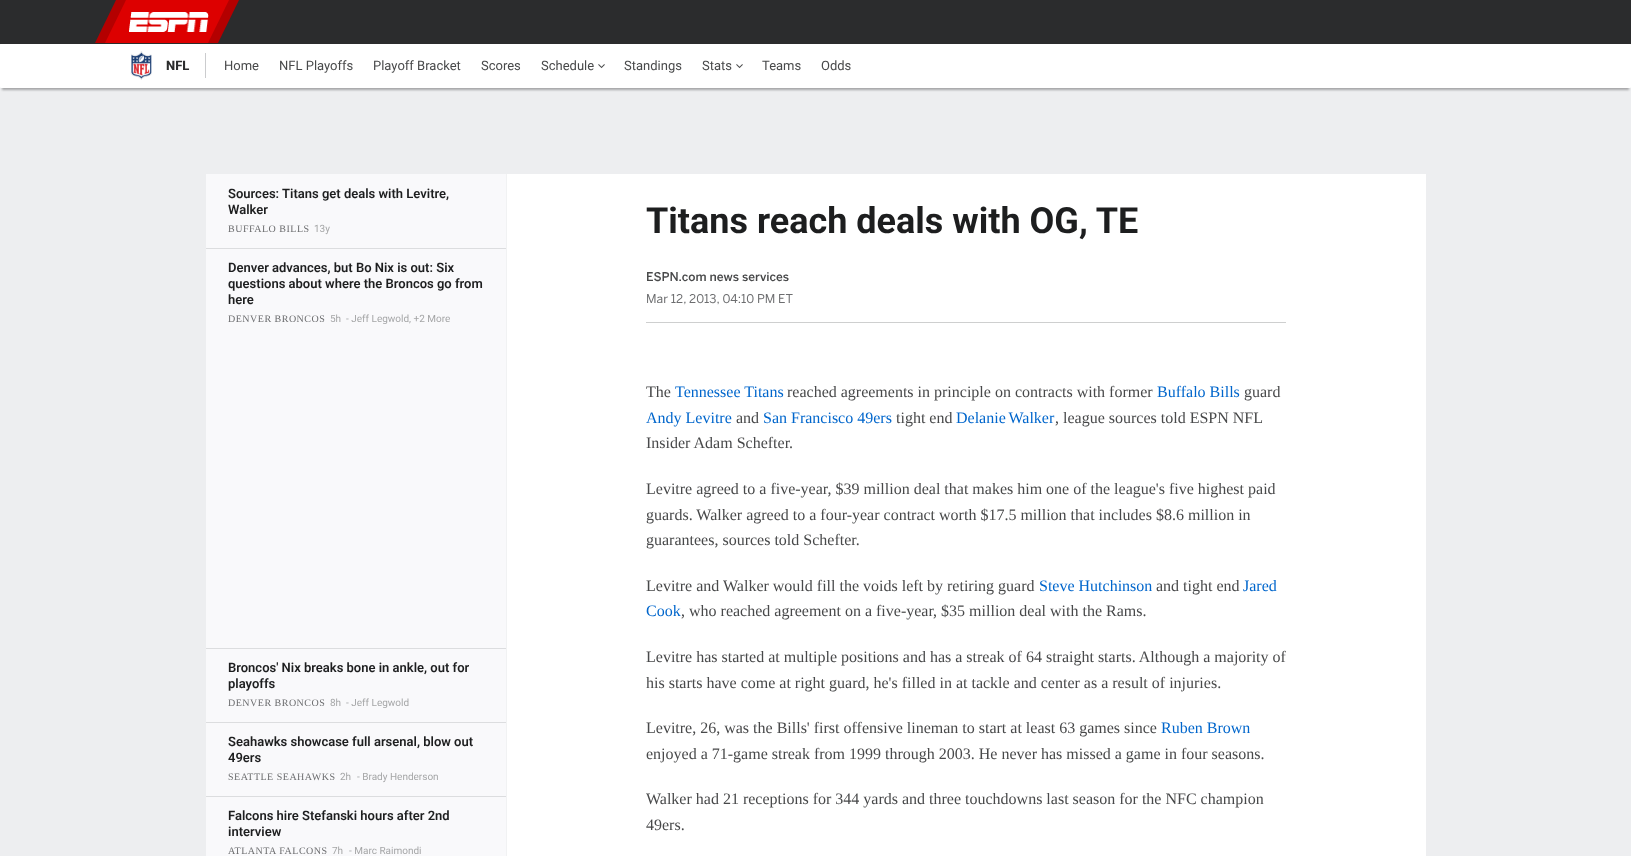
<!DOCTYPE html>
<meta charset="utf-8">
<style>body { margin: 0 } canvas { display: block }</style>
<canvas id="canvas" width="1631" height="856"></canvas>
<img id="img1" src="images/1.png" hidden>
<img id="img2" src="images/2.png" hidden>
<img id="img3" src="images/3.png" hidden>
<script>
window.onload = function () {
    const canvas = document.getElementById('canvas');
    const context = canvas.getContext('2d');
    context.miterLimit = 4;
    context.fontKerning = 'normal';

    context.fillStyle = 'rgb(237, 238, 240)';
    context.fillRect(0, 0, 1631, 856);
    context.fillStyle = 'rgb(43, 44, 45)';
    context.fillRect(0, 0, 1631, 44);
    context.fillStyle = 'rgb(180, 0, 0)';
    context.beginPath();
    context.moveTo(116, 0);
    context.lineTo(239, 0);
    context.lineTo(218, 43);
    context.lineTo(95, 43);
    context.closePath();
    context.fill();
    context.fillStyle = 'rgb(221, 0, 0)';
    context.beginPath();
    context.moveTo(126, 0);
    context.lineTo(229, 0);
    context.lineTo(208, 43);
    context.lineTo(105, 43);
    context.closePath();
    context.fill();
    context.drawImage(document.getElementById('img1'), 129, 12, 80, 20);
    context.fillStyle = 'rgba(0, 0, 0, 0.3)';
    context.filter = 'blur(1px)';
    context.beginPath();
    context.rect(2, 50, 1627, 40);
    context.fill();
    context.filter = 'none';
    context.fillStyle = 'rgb(255, 255, 255)';
    context.beginPath();
    context.roundRect(0, 44, 1631, 44, 1);
    context.fill();
    context.drawImage(document.getElementById('img2'), 130, 51, 22, 29);
    context.fillStyle = 'rgb(203, 204, 206)';
    context.fillRect(205, 53, 1, 25);
    context.drawImage(document.getElementById('img3'), 598, 64, 7, 5);
    context.drawImage(document.getElementById('img3'), 736, 64, 7, 5);
    context.fillStyle = 'rgb(249, 249, 251)';
    context.fillRect(206, 174, 300, 682);
    context.fillStyle = 'rgb(220, 221, 223)';
    context.fillRect(206, 248, 300, 1);
    context.fillRect(206, 648, 300, 1);
    context.fillRect(206, 722, 300, 1);
    context.fillRect(206, 796, 300, 1);
    context.fillStyle = 'rgb(241, 242, 243)';
    context.fillRect(506, 174, 1, 682);
    context.fillStyle = 'rgb(255, 255, 255)';
    context.fillRect(507, 174, 919, 682);
    context.fillStyle = 'rgb(206, 207, 207)';
    context.fillRect(646, 322, 640, 1);
    context.font = '800 13px Roboto';
    context.fillStyle = 'rgb(43, 44, 45)';
    context.fillText('NFL', 166, 70);
    context.font = '13px Roboto';
    context.fillStyle = 'rgb(72, 73, 74)';
    context.fillText('Home', 224, 70);
    context.fillText('NFL Playoffs', 279, 70);
    context.fillText('Playoff Bracket', 373, 70);
    context.fillText('Scores', 481, 70);
    context.fillText('Schedule', 541, 70);
    context.fillText('Standings', 624, 70);
    context.fillText('Stats', 702, 70);
    context.fillText('Teams', 762, 70);
    context.fillText('Odds', 821, 70);
    context.font = '600 13px Roboto';
    context.fillStyle = 'rgb(29, 30, 31)';
    context.fillText('Sources: Titans get deals with Levitre,', 228, 198);
    context.fillText('Walker', 228, 214);
    context.letterSpacing = '0.5px';
    context.font = '10px Liberation Serif';
    context.fillStyle = 'rgb(108, 109, 111)';
    context.fillText('BUFFALO BILLS', 228, 232);
    context.letterSpacing = '0px';
    context.font = '10px Roboto';
    context.fillStyle = 'rgb(165, 166, 167)';
    context.fillText('13y', 314, 232);
    context.font = '600 13px Roboto';
    context.fillStyle = 'rgb(29, 30, 31)';
    context.fillText('Denver advances, but Bo Nix is out: Six', 228, 272);
    context.fillText('questions about where the Broncos go from', 228, 288);
    context.fillText('here', 228, 304);
    context.letterSpacing = '0.5px';
    context.font = '10px Liberation Serif';
    context.fillStyle = 'rgb(108, 109, 111)';
    context.fillText('DENVER BRONCOS', 228, 322);
    context.letterSpacing = '0px';
    context.font = '10px Roboto';
    context.fillStyle = 'rgb(165, 166, 167)';
    context.fillText('5h', 330, 322);
    context.fillText('- Jeff Legwold, +2 More', 346, 322);
    context.font = '600 13px Roboto';
    context.fillStyle = 'rgb(29, 30, 31)';
    context.fillText('Broncos\' Nix breaks bone in ankle, out for', 228, 672);
    context.fillText('playoffs', 228, 688);
    context.letterSpacing = '0.5px';
    context.font = '10px Liberation Serif';
    context.fillStyle = 'rgb(108, 109, 111)';
    context.fillText('DENVER BRONCOS', 228, 706);
    context.letterSpacing = '0px';
    context.font = '10px Roboto';
    context.fillStyle = 'rgb(165, 166, 167)';
    context.fillText('8h', 330, 706);
    context.fillText('- Jeff Legwold', 346, 706);
    context.font = '600 13px Roboto';
    context.fillStyle = 'rgb(29, 30, 31)';
    context.fillText('Seahawks showcase full arsenal, blow out', 228, 746);
    context.fillText('49ers', 228, 762);
    context.letterSpacing = '0.5px';
    context.font = '10px Liberation Serif';
    context.fillStyle = 'rgb(108, 109, 111)';
    context.fillText('SEATTLE SEAHAWKS', 228, 780);
    context.letterSpacing = '0px';
    context.font = '10px Roboto';
    context.fillStyle = 'rgb(165, 166, 167)';
    context.fillText('2h', 340, 780);
    context.fillText('- Brady Henderson', 357, 780);
    context.font = '600 13px Roboto';
    context.fillStyle = 'rgb(29, 30, 31)';
    context.fillText('Falcons hire Stefanski hours after 2nd', 228, 820);
    context.fillText('interview', 228, 836);
    context.letterSpacing = '0.5px';
    context.font = '10px Liberation Serif';
    context.fillStyle = 'rgb(108, 109, 111)';
    context.fillText('ATLANTA FALCONS', 228, 854);
    context.letterSpacing = '0px';
    context.font = '10px Roboto';
    context.fillStyle = 'rgb(165, 166, 167)';
    context.fillText('7h', 332, 854);
    context.fillText('- Marc Raimondi', 349, 854);
    context.font = 'bold 36px Roboto';
    context.fillStyle = 'rgb(29, 30, 31)';
    context.fillText('Titans reach deals with OG, TE', 646, 233);
    context.font = '500 12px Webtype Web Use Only';
    context.fillStyle = 'rgb(72, 73, 74)';
    context.fillText('ESPN.com news services', 646, 281);
    context.font = '12px Webtype Web Use Only';
    context.fillStyle = 'rgb(108, 109, 111)';
    context.fillText('Mar 12, 2013, 04:10 PM ET', 646, 303);
    context.font = '16px Liberation Serif';
    context.fillStyle = 'rgb(72, 73, 74)';
    context.fillText('The', 646, 397);
    context.fillStyle = 'rgb(0, 102, 204)';
    context.fillText('Tennessee Titans', 675, 397);
    context.fillStyle = 'rgb(72, 73, 74)';
    context.fillText('reached agreements in principle on contracts with former', 787, 397);
    context.fillStyle = 'rgb(0, 102, 204)';
    context.fillText('Buffalo Bills', 1157, 397);
    context.fillStyle = 'rgb(72, 73, 74)';
    context.fillText('guard', 1244, 397);
    context.fillStyle = 'rgb(0, 102, 204)';
    context.fillText('Andy Levitre', 646, 423);
    context.fillStyle = 'rgb(72, 73, 74)';
    context.fillText('and', 736, 423);
    context.fillStyle = 'rgb(0, 102, 204)';
    context.fillText('San Francisco 49ers', 763, 423);
    context.fillStyle = 'rgb(72, 73, 74)';
    context.fillText('tight end', 896, 423);
    context.wordSpacing = '-1px';
    context.fillStyle = 'rgb(0, 102, 204)';
    context.fillText('Delanie Walker', 956, 423);
    context.wordSpacing = '0px';
    context.fillStyle = 'rgb(72, 73, 74)';
    context.fillText(', league sources told ESPN NFL', 1055, 423);
    context.fillText('Insider Adam Schefter.', 646, 448);
    context.fillText('Levitre agreed to a five-year, $39 million deal that makes him one of the league\'s five highest paid', 646, 494);
    context.fillText('guards. Walker agreed to a four-year contract worth $17.5 million that includes $8.6 million in', 646, 520);
    context.fillText('guarantees, sources told Schefter.', 646, 545);
    context.fillText('Levitre and Walker would fill the voids left by retiring guard', 646, 591);
    context.fillStyle = 'rgb(0, 102, 204)';
    context.fillText('Steve Hutchinson', 1039, 591);
    context.fillStyle = 'rgb(72, 73, 74)';
    context.fillText('and tight end', 1156, 591);
    context.fillStyle = 'rgb(0, 102, 204)';
    context.fillText('Jared', 1243, 591);
    context.fillText('Cook', 646, 616);
    context.fillStyle = 'rgb(72, 73, 74)';
    context.fillText(', who reached agreement on a five-year, $35 million deal with the Rams.', 681, 616);
    context.fillText('Levitre has started at multiple positions and has a streak of 64 straight starts. Although a majority of', 646, 662);
    context.fillText('his starts have come at right guard, he\'s filled in at tackle and center as a result of injuries.', 646, 688);
    context.fillText('Levitre, 26, was the Bills\' first offensive lineman to start at least 63 games since', 646, 733);
    context.fillStyle = 'rgb(0, 102, 204)';
    context.fillText('Ruben Brown', 1161, 733);
    context.fillStyle = 'rgb(72, 73, 74)';
    context.fillText('enjoyed a 71-game streak from 1999 through 2003. He never has missed a game in four seasons.', 646, 759);
    context.fillText('Walker had 21 receptions for 344 yards and three touchdowns last season for the NFC champion', 646, 804);
    context.fillText('49ers.', 646, 830);
};
</script>
